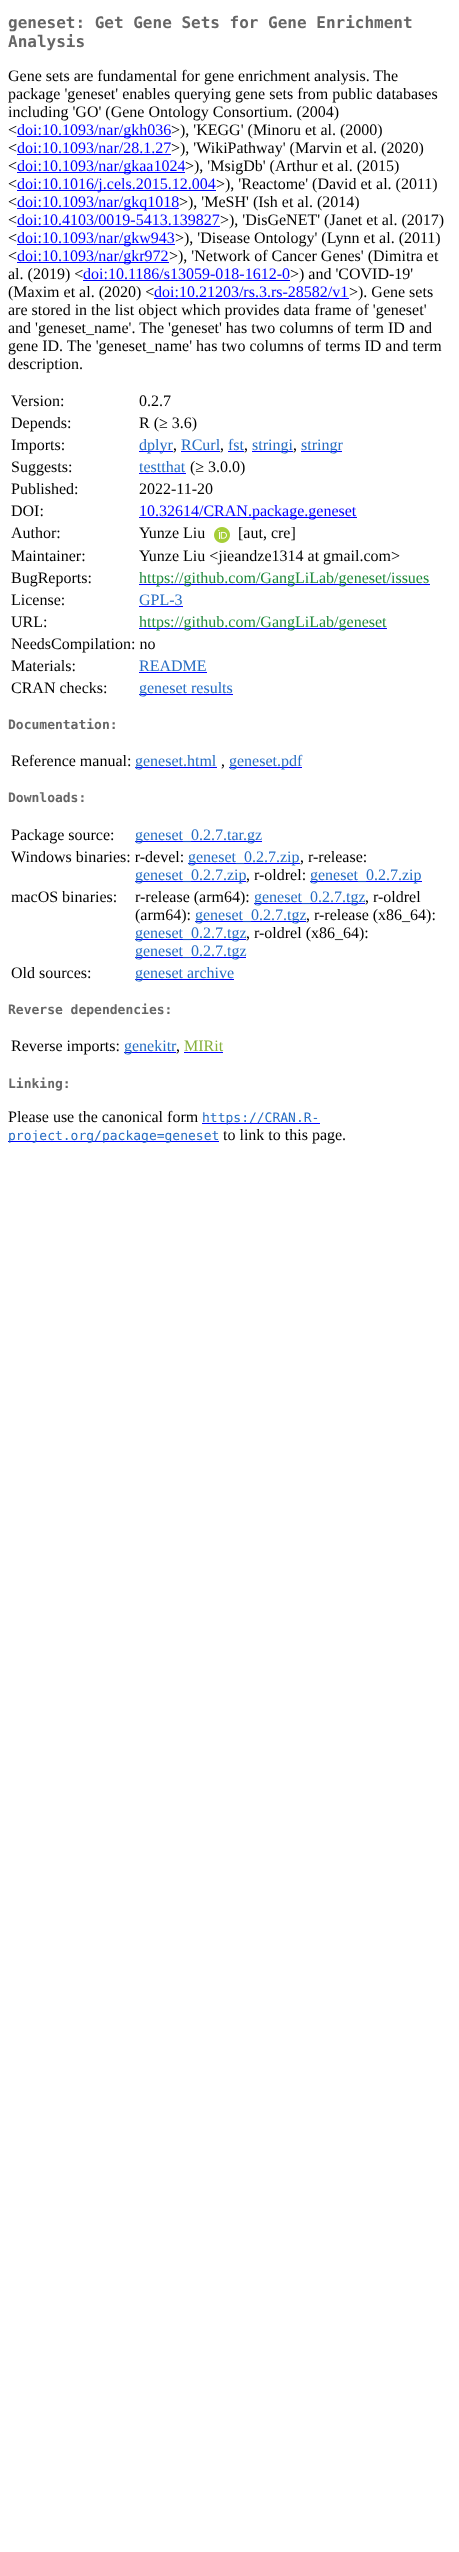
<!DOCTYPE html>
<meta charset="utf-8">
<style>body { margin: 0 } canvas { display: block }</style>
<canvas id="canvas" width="459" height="2552"></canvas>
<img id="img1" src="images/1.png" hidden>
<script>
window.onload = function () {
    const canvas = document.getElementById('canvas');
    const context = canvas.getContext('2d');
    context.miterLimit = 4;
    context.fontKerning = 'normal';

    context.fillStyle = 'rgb(255, 255, 255)';
    context.fillRect(0, 0, 459, 2552);
    context.fillStyle = 'rgb(0, 0, 255)';
    context.fillRect(17, 136, 154, 1);
    context.fillRect(17, 154, 154, 1);
    context.fillRect(17, 172, 168, 1);
    context.fillRect(17, 190, 199, 1);
    context.fillRect(17, 208, 162, 1);
    context.fillRect(17, 226, 203, 1);
    context.fillRect(17, 244, 158, 1);
    context.fillRect(17, 262, 152, 1);
    context.fillRect(83, 280, 207, 1);
    context.fillRect(154, 298, 195, 1);
    context.fillRect(139, 451, 34, 1);
    context.fillRect(181, 451, 39, 1);
    context.fillRect(228, 451, 16, 1);
    context.fillRect(252, 451, 41, 1);
    context.fillRect(301, 451, 41, 1);
    context.fillRect(139, 473, 47, 1);
    context.fillRect(139, 517, 218, 1);
    context.drawImage(document.getElementById('img1'), 214, 527, 16, 16);
    context.fillRect(139, 584, 291, 1);
    context.fillRect(139, 606, 44, 1);
    context.fillRect(139, 628, 248, 1);
    context.fillRect(139, 672, 68, 1);
    context.fillRect(139, 694, 94, 1);
    context.fillRect(135, 767, 82, 1);
    context.fillRect(229, 767, 73, 1);
    context.fillRect(135, 841, 127, 1);
    context.fillRect(188, 863, 112, 1);
    context.fillRect(135, 881, 111, 1);
    context.fillRect(310, 881, 112, 1);
    context.fillRect(254, 903, 111, 1);
    context.fillRect(195, 921, 111, 1);
    context.fillRect(135, 939, 111, 1);
    context.fillRect(135, 957, 111, 1);
    context.fillRect(135, 979, 99, 1);
    context.fillRect(124, 1052, 52, 1);
    context.fillRect(184, 1052, 39, 1);
    context.fillRect(202, 1123, 118, 1);
    context.fillRect(8, 1141, 211, 1);
    context.font = 'bold 16px DejaVu Sans Mono';
    context.fillStyle = 'rgb(102, 102, 102)';
    context.fillText('geneset: Get Gene Sets for Gene Enrichment', 8, 28);
    context.fillText('Analysis', 8, 47);
    context.font = '16px Liberation Serif';
    context.fillStyle = 'rgb(0, 0, 0)';
    context.fillText('Gene sets are fundamental for gene enrichment analysis. The', 8, 81);
    context.fillText('package \'geneset\' enables querying gene sets from public databases', 8, 99);
    context.fillText('including \'GO\' (Gene Ontology Consortium. (2004)', 8, 117);
    context.fillText('<', 8, 135);
    context.fillStyle = 'rgb(0, 0, 255)';
    context.fillText('doi:10.1093/nar/gkh036', 17, 135);
    context.fillStyle = 'rgb(0, 0, 0)';
    context.fillText('>), \'KEGG\' (Minoru et al. (2000)', 171, 135);
    context.fillText('<', 8, 153);
    context.fillStyle = 'rgb(0, 0, 255)';
    context.fillText('doi:10.1093/nar/28.1.27', 17, 153);
    context.fillStyle = 'rgb(0, 0, 0)';
    context.fillText('>), \'WikiPathway\' (Marvin et al. (2020)', 171, 153);
    context.fillText('<', 8, 171);
    context.fillStyle = 'rgb(0, 0, 255)';
    context.fillText('doi:10.1093/nar/gkaa1024', 17, 171);
    context.fillStyle = 'rgb(0, 0, 0)';
    context.fillText('>), \'MsigDb\' (Arthur et al. (2015)', 185, 171);
    context.fillText('<', 8, 189);
    context.fillStyle = 'rgb(0, 0, 255)';
    context.fillText('doi:10.1016/j.cels.2015.12.004', 17, 189);
    context.fillStyle = 'rgb(0, 0, 0)';
    context.fillText('>), \'Reactome\' (David et al. (2011)', 216, 189);
    context.fillText('<', 8, 207);
    context.fillStyle = 'rgb(0, 0, 255)';
    context.fillText('doi:10.1093/nar/gkq1018', 17, 207);
    context.fillStyle = 'rgb(0, 0, 0)';
    context.fillText('>), \'MeSH\' (Ish et al. (2014)', 179, 207);
    context.fillText('<', 8, 225);
    context.fillStyle = 'rgb(0, 0, 255)';
    context.fillText('doi:10.4103/0019-5413.139827', 17, 225);
    context.fillStyle = 'rgb(0, 0, 0)';
    context.fillText('>), \'DisGeNET\' (Janet et al. (2017)', 220, 225);
    context.fillText('<', 8, 243);
    context.fillStyle = 'rgb(0, 0, 255)';
    context.fillText('doi:10.1093/nar/gkw943', 17, 243);
    context.fillStyle = 'rgb(0, 0, 0)';
    context.fillText('>), \'Disease Ontology\' (Lynn et al. (2011)', 175, 243);
    context.fillText('<', 8, 261);
    context.fillStyle = 'rgb(0, 0, 255)';
    context.fillText('doi:10.1093/nar/gkr972', 17, 261);
    context.fillStyle = 'rgb(0, 0, 0)';
    context.fillText('>), \'Network of Cancer Genes\' (Dimitra et', 169, 261);
    context.fillText('al. (2019) <', 8, 279);
    context.fillStyle = 'rgb(0, 0, 255)';
    context.fillText('doi:10.1186/s13059-018-1612-0', 83, 279);
    context.fillStyle = 'rgb(0, 0, 0)';
    context.fillText('>) and \'COVID-19\'', 290, 279);
    context.fillText('(Maxim et al. (2020) <', 8, 297);
    context.fillStyle = 'rgb(0, 0, 255)';
    context.fillText('doi:10.21203/rs.3.rs-28582/v1', 154, 297);
    context.fillStyle = 'rgb(0, 0, 0)';
    context.fillText('>). Gene sets', 349, 297);
    context.fillText('are stored in the list object which provides data frame of \'geneset\'', 8, 315);
    context.fillText('and \'geneset_name\'. The \'geneset\' has two columns of term ID and', 8, 333);
    context.fillText('gene ID. The \'geneset_name\' has two columns of terms ID and term', 8, 351);
    context.fillText('description.', 8, 369);
    context.fillText('Version:', 11, 406);
    context.fillText('0.2.7', 139, 406);
    context.fillText('Depends:', 11, 428);
    context.fillText('R (≥ 3.6)', 139, 428);
    context.fillText('Imports:', 11, 450);
    context.fillStyle = 'rgb(39, 109, 195)';
    context.fillText('dplyr', 139, 450);
    context.fillStyle = 'rgb(0, 0, 0)';
    context.fillText(',', 173, 450);
    context.fillStyle = 'rgb(39, 109, 195)';
    context.fillText('RCurl', 181, 450);
    context.fillStyle = 'rgb(0, 0, 0)';
    context.fillText(',', 220, 450);
    context.fillStyle = 'rgb(39, 109, 195)';
    context.fillText('fst', 228, 450);
    context.fillStyle = 'rgb(0, 0, 0)';
    context.fillText(',', 244, 450);
    context.fillStyle = 'rgb(39, 109, 195)';
    context.fillText('stringi', 252, 450);
    context.fillStyle = 'rgb(0, 0, 0)';
    context.fillText(',', 293, 450);
    context.fillStyle = 'rgb(39, 109, 195)';
    context.fillText('stringr', 301, 450);
    context.fillStyle = 'rgb(0, 0, 0)';
    context.fillText('Suggests:', 11, 472);
    context.fillStyle = 'rgb(39, 109, 195)';
    context.fillText('testthat', 139, 472);
    context.fillStyle = 'rgb(0, 0, 0)';
    context.fillText('(≥ 3.0.0)', 190, 472);
    context.fillText('Published:', 11, 494);
    context.fillText('2022-11-20', 139, 494);
    context.fillText('DOI:', 11, 516);
    context.fillStyle = 'rgb(0, 0, 255)';
    context.fillText('10.32614/CRAN.package.geneset', 139, 516);
    context.fillStyle = 'rgb(0, 0, 0)';
    context.fillText('Author:', 11, 538);
    context.fillText('Yunze Liu', 139, 538);
    context.fillText('[aut, cre]', 238, 538);
    context.fillText('Maintainer:', 11, 561);
    context.fillText('Yunze Liu <jieandze1314 at gmail.com>', 139, 561);
    context.fillText('BugReports:', 11, 583);
    context.fillStyle = 'rgb(31, 136, 61)';
    context.fillText('https://github.com/GangLiLab/geneset/issues', 139, 583);
    context.fillStyle = 'rgb(0, 0, 0)';
    context.fillText('License:', 11, 605);
    context.fillStyle = 'rgb(39, 109, 195)';
    context.fillText('GPL-3', 139, 605);
    context.fillStyle = 'rgb(0, 0, 0)';
    context.fillText('URL:', 11, 627);
    context.fillStyle = 'rgb(31, 136, 61)';
    context.fillText('https://github.com/GangLiLab/geneset', 139, 627);
    context.fillStyle = 'rgb(0, 0, 0)';
    context.fillText('NeedsCompilation: no', 11, 649);
    context.fillText('Materials:', 11, 671);
    context.fillStyle = 'rgb(39, 109, 195)';
    context.fillText('README', 139, 671);
    context.fillStyle = 'rgb(0, 0, 0)';
    context.fillText('CRAN checks:', 11, 693);
    context.fillStyle = 'rgb(39, 109, 195)';
    context.fillText('geneset results', 139, 693);
    context.font = 'bold 13px DejaVu Sans Mono';
    context.fillStyle = 'rgb(102, 102, 102)';
    context.fillText('Documentation:', 8, 729);
    context.font = '16px Liberation Serif';
    context.fillStyle = 'rgb(0, 0, 0)';
    context.fillText('Reference manual:', 11, 766);
    context.fillStyle = 'rgb(39, 109, 195)';
    context.fillText('geneset.html', 135, 766);
    context.fillStyle = 'rgb(0, 0, 0)';
    context.fillText(',', 221, 766);
    context.fillStyle = 'rgb(39, 109, 195)';
    context.fillText('geneset.pdf', 229, 766);
    context.font = 'bold 13px DejaVu Sans Mono';
    context.fillStyle = 'rgb(102, 102, 102)';
    context.fillText('Downloads:', 8, 802);
    context.font = '16px Liberation Serif';
    context.fillStyle = 'rgb(0, 0, 0)';
    context.fillText('Package source:', 11, 840);
    context.fillStyle = 'rgb(39, 109, 195)';
    context.fillText('geneset_0.2.7.tar.gz', 135, 840);
    context.fillStyle = 'rgb(0, 0, 0)';
    context.fillText('Windows binaries: r-devel:', 11, 862);
    context.fillStyle = 'rgb(39, 109, 195)';
    context.fillText('geneset_0.2.7.zip', 188, 862);
    context.fillStyle = 'rgb(0, 0, 0)';
    context.fillText(', r-release:', 300, 862);
    context.fillStyle = 'rgb(39, 109, 195)';
    context.fillText('geneset_0.2.7.zip', 135, 880);
    context.fillStyle = 'rgb(0, 0, 0)';
    context.fillText(', r-oldrel:', 246, 880);
    context.fillStyle = 'rgb(39, 109, 195)';
    context.fillText('geneset_0.2.7.zip', 310, 880);
    context.fillStyle = 'rgb(0, 0, 0)';
    context.fillText('macOS binaries:', 11, 902);
    context.fillText('r-release (arm64):', 135, 902);
    context.fillStyle = 'rgb(39, 109, 195)';
    context.fillText('geneset_0.2.7.tgz', 254, 902);
    context.fillStyle = 'rgb(0, 0, 0)';
    context.fillText(', r-oldrel', 365, 902);
    context.fillText('(arm64):', 135, 920);
    context.fillStyle = 'rgb(39, 109, 195)';
    context.fillText('geneset_0.2.7.tgz', 195, 920);
    context.fillStyle = 'rgb(0, 0, 0)';
    context.fillText(', r-release (x86_64):', 306, 920);
    context.fillStyle = 'rgb(39, 109, 195)';
    context.fillText('geneset_0.2.7.tgz', 135, 938);
    context.fillStyle = 'rgb(0, 0, 0)';
    context.fillText(', r-oldrel (x86_64):', 246, 938);
    context.fillStyle = 'rgb(39, 109, 195)';
    context.fillText('geneset_0.2.7.tgz', 135, 956);
    context.fillStyle = 'rgb(0, 0, 0)';
    context.fillText('Old sources:', 11, 978);
    context.fillStyle = 'rgb(39, 109, 195)';
    context.fillText('geneset archive', 135, 978);
    context.font = 'bold 13px DejaVu Sans Mono';
    context.fillStyle = 'rgb(102, 102, 102)';
    context.fillText('Reverse dependencies:', 8, 1014);
    context.font = '16px Liberation Serif';
    context.fillStyle = 'rgb(0, 0, 0)';
    context.fillText('Reverse imports:', 11, 1051);
    context.fillStyle = 'rgb(39, 109, 195)';
    context.fillText('genekitr', 124, 1051);
    context.fillStyle = 'rgb(0, 0, 0)';
    context.fillText(',', 176, 1051);
    context.fillStyle = 'rgb(135, 177, 63)';
    context.fillText('MIRit', 184, 1051);
    context.font = 'bold 13px DejaVu Sans Mono';
    context.fillStyle = 'rgb(102, 102, 102)';
    context.fillText('Linking:', 8, 1088);
    context.font = '16px Liberation Serif';
    context.fillStyle = 'rgb(0, 0, 0)';
    context.fillText('Please use the canonical form', 8, 1122);
    context.font = '13px DejaVu Sans Mono';
    context.fillStyle = 'rgb(39, 109, 195)';
    context.fillText('https://CRAN.R-', 202, 1122);
    context.fillText('project.org/package=geneset', 8, 1140);
    context.font = '16px Liberation Serif';
    context.fillStyle = 'rgb(0, 0, 0)';
    context.fillText('to link to this page.', 223, 1140);
};
</script>
